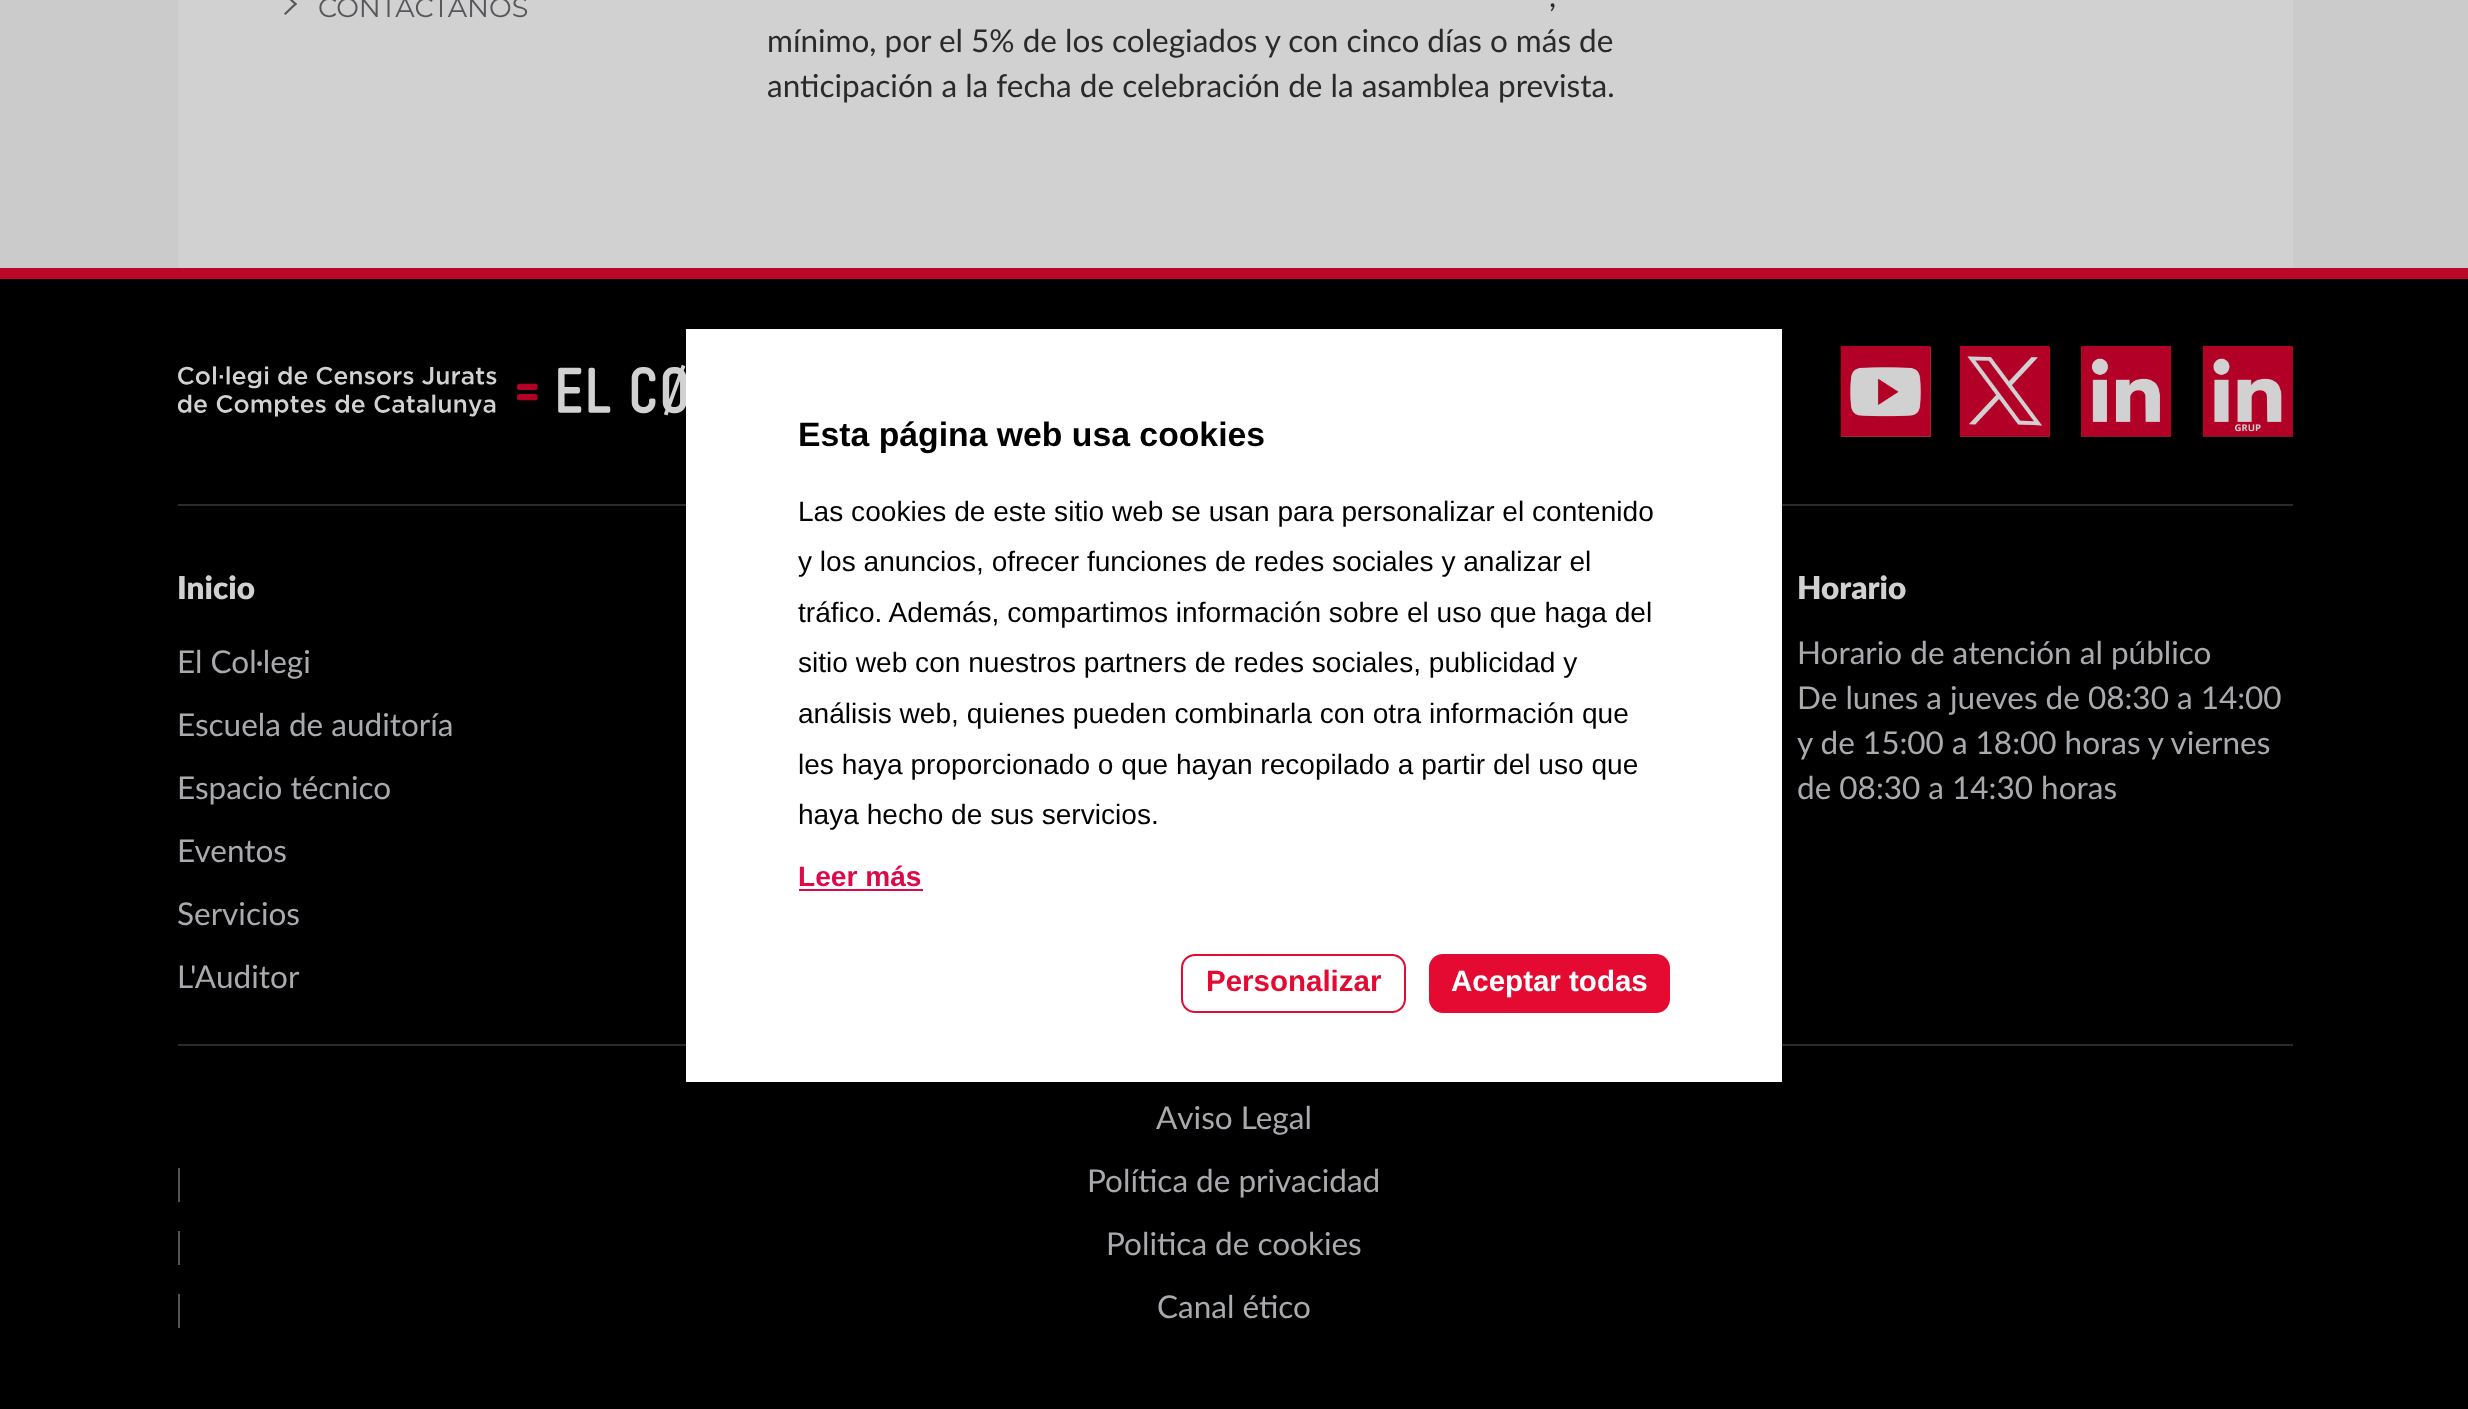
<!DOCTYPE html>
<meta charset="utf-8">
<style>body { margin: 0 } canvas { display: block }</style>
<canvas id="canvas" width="2468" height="1409"></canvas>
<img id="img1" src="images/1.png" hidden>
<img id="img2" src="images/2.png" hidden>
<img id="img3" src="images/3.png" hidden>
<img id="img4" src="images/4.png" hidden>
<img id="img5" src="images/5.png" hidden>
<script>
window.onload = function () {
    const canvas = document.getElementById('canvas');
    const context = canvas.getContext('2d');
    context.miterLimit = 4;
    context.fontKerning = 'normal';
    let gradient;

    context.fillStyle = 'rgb(203, 203, 203)';
    context.fillRect(0, 0, 2468, 1409);
    context.fillStyle = 'rgb(209, 209, 209)';
    context.fillRect(178, 0, 2115, 268);
    context.fillStyle = 'rgb(87, 87, 91)';
    context.beginPath();
    context.moveTo(285.5, -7);
    context.lineTo(297, 4);
    context.lineTo(295.5, 5.5);
    context.lineTo(284, -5.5);
    context.closePath();
    context.fill();
    context.beginPath();
    context.moveTo(295.5, 2.5);
    context.lineTo(297, 4);
    context.lineTo(285.5, 15);
    context.lineTo(284, 13.5);
    context.closePath();
    context.fill();
    context.fillStyle = 'rgb(0, 0, 0)';
    context.fillRect(0, 279, 2468, 1130);
    context.fillStyle = 'rgb(42, 42, 42)';
    context.fillRect(178, 504, 2115, 2);
    context.fillRect(178, 1044, 2115, 2);
    context.fillStyle = 'rgb(255, 255, 255)';
    context.fillRect(686, 329, 1096, 753);
    context.fillStyle = 'rgb(222, 9, 72)';
    context.fillRect(799, 889, 124, 2);
    context.beginPath();
    context.roundRect(1182, 955, 223, 57, 13);
    context.strokeStyle = 'rgb(229, 10, 49)';
    context.lineWidth = 2;
    context.stroke();
    context.fillStyle = 'rgb(229, 10, 49)';
    context.beginPath();
    context.roundRect(1429, 954, 241, 59, 14);
    context.fill();
    context.fillStyle = 'rgb(188, 8, 40)';
    context.fillRect(0, 268, 2468, 11);
    context.drawImage(document.getElementById('img1'), 178, 365, 508, 52);
    gradient = context.createLinearGradient(1886, 347, 1886, 437);
    gradient.addColorStop(0, 'rgb(180, 46, 43)');
    gradient.addColorStop(1, 'rgb(158, 46, 43)');
    context.fillStyle = gradient;
    context.fillRect(1841, 347, 90, 90);
    context.drawImage(document.getElementById('img2'), 1840, 346, 91, 90);
    gradient = context.createLinearGradient(2005, 347, 2005, 437);
    gradient.addColorStop(0, 'rgb(160, 32, 32)');
    gradient.addColorStop(1, 'rgb(141, 34, 34)');
    context.fillStyle = gradient;
    context.fillRect(1960, 347, 90, 90);
    context.drawImage(document.getElementById('img3'), 1959, 346, 91, 90);
    gradient = context.createLinearGradient(2126, 347, 2126, 437);
    gradient.addColorStop(0, 'rgb(141, 30, 32)');
    gradient.addColorStop(1, 'rgb(124, 33, 34)');
    context.fillStyle = gradient;
    context.fillRect(2081, 347, 90, 90);
    context.drawImage(document.getElementById('img4'), 2081, 346, 91, 90);
    gradient = context.createLinearGradient(2248, 347, 2248, 437);
    gradient.addColorStop(0, 'rgb(123, 28, 30)');
    gradient.addColorStop(1, 'rgb(108, 30, 30)');
    context.fillStyle = gradient;
    context.fillRect(2203, 347, 90, 90);
    context.drawImage(document.getElementById('img5'), 2202, 346, 91, 90);
    context.fillStyle = 'rgb(84, 84, 84)';
    context.fillRect(178, 1168, 2, 34);
    context.fillRect(178, 1231, 2, 34);
    context.fillRect(178, 1294, 2, 34);
    context.font = '27px Montserrat';
    context.fillStyle = 'rgb(87, 87, 91)';
    context.fillText('CONTÁCTANOS', 318, 17);
    context.font = '31.5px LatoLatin';
    context.fillStyle = 'rgb(42, 42, 42)';
    context.fillText(',', 1549, 7);
    context.fillText('mínimo, por el 5% de los colegiados y con cinco días o más de', 767, 52);
    context.fillText('anticipación a la fecha de celebración de la asamblea prevista.', 767, 97);
    context.font = 'bold 33.75px Liberation Sans';
    context.fillStyle = 'rgb(0, 0, 0)';
    context.fillText('Esta página web usa cookies', 798, 446);
    context.font = '28.1px Liberation Sans';
    context.fillText('Las cookies de este sitio web se usan para personalizar el contenido', 798, 521);
    context.fillText('y los anuncios, ofrecer funciones de redes sociales y analizar el', 798, 571);
    context.fillText('tráfico. Además, compartimos información sobre el uso que haga del', 798, 622);
    context.fillText('sitio web con nuestros partners de redes sociales, publicidad y', 798, 672);
    context.fillText('análisis web, quienes pueden combinarla con otra información que', 798, 723);
    context.fillText('les haya proporcionado o que hayan recopilado a partir del uso que', 798, 774);
    context.fillText('haya hecho de sus servicios.', 798, 824);
    context.font = 'bold 28.1px Liberation Sans';
    context.fillStyle = 'rgb(222, 9, 72)';
    context.fillText('Leer más', 798, 886);
    context.font = 'bold 29.5px Liberation Sans';
    context.fillStyle = 'rgb(229, 10, 49)';
    context.fillText('Personalizar', 1206, 991);
    context.fillStyle = 'rgb(255, 255, 255)';
    context.fillText('Aceptar todas', 1451, 991);
    context.font = '900 31.5px LatoLatin';
    context.fillStyle = 'rgb(209, 209, 209)';
    context.fillText('Inicio', 177, 599);
    context.font = '31.5px LatoLatin';
    context.fillStyle = 'rgb(169, 170, 174)';
    context.fillText('El Col·legi', 177, 673);
    context.fillText('Escuela de auditoría', 177, 736);
    context.fillText('Espacio técnico', 177, 799);
    context.fillText('Eventos', 177, 862);
    context.fillText('Servicios', 177, 925);
    context.fillText('L\'Auditor', 177, 988);
    context.font = '900 31.5px LatoLatin';
    context.fillStyle = 'rgb(209, 209, 209)';
    context.fillText('Horario', 1797, 599);
    context.font = '31.5px LatoLatin';
    context.fillStyle = 'rgb(169, 170, 174)';
    context.fillText('Horario de atención al público', 1797, 664);
    context.fillText('De lunes a jueves de 08:30 a 14:00', 1797, 709);
    context.fillText('y de 15:00 a 18:00 horas y viernes', 1797, 754);
    context.fillText('de 08:30 a 14:30 horas', 1797, 799);
    context.fillText('Aviso Legal', 1156, 1129);
    context.fillText('Política de privacidad', 1087, 1192);
    context.fillText('Politica de cookies', 1106, 1255);
    context.fillText('Canal ético', 1157, 1318);
};
</script>
